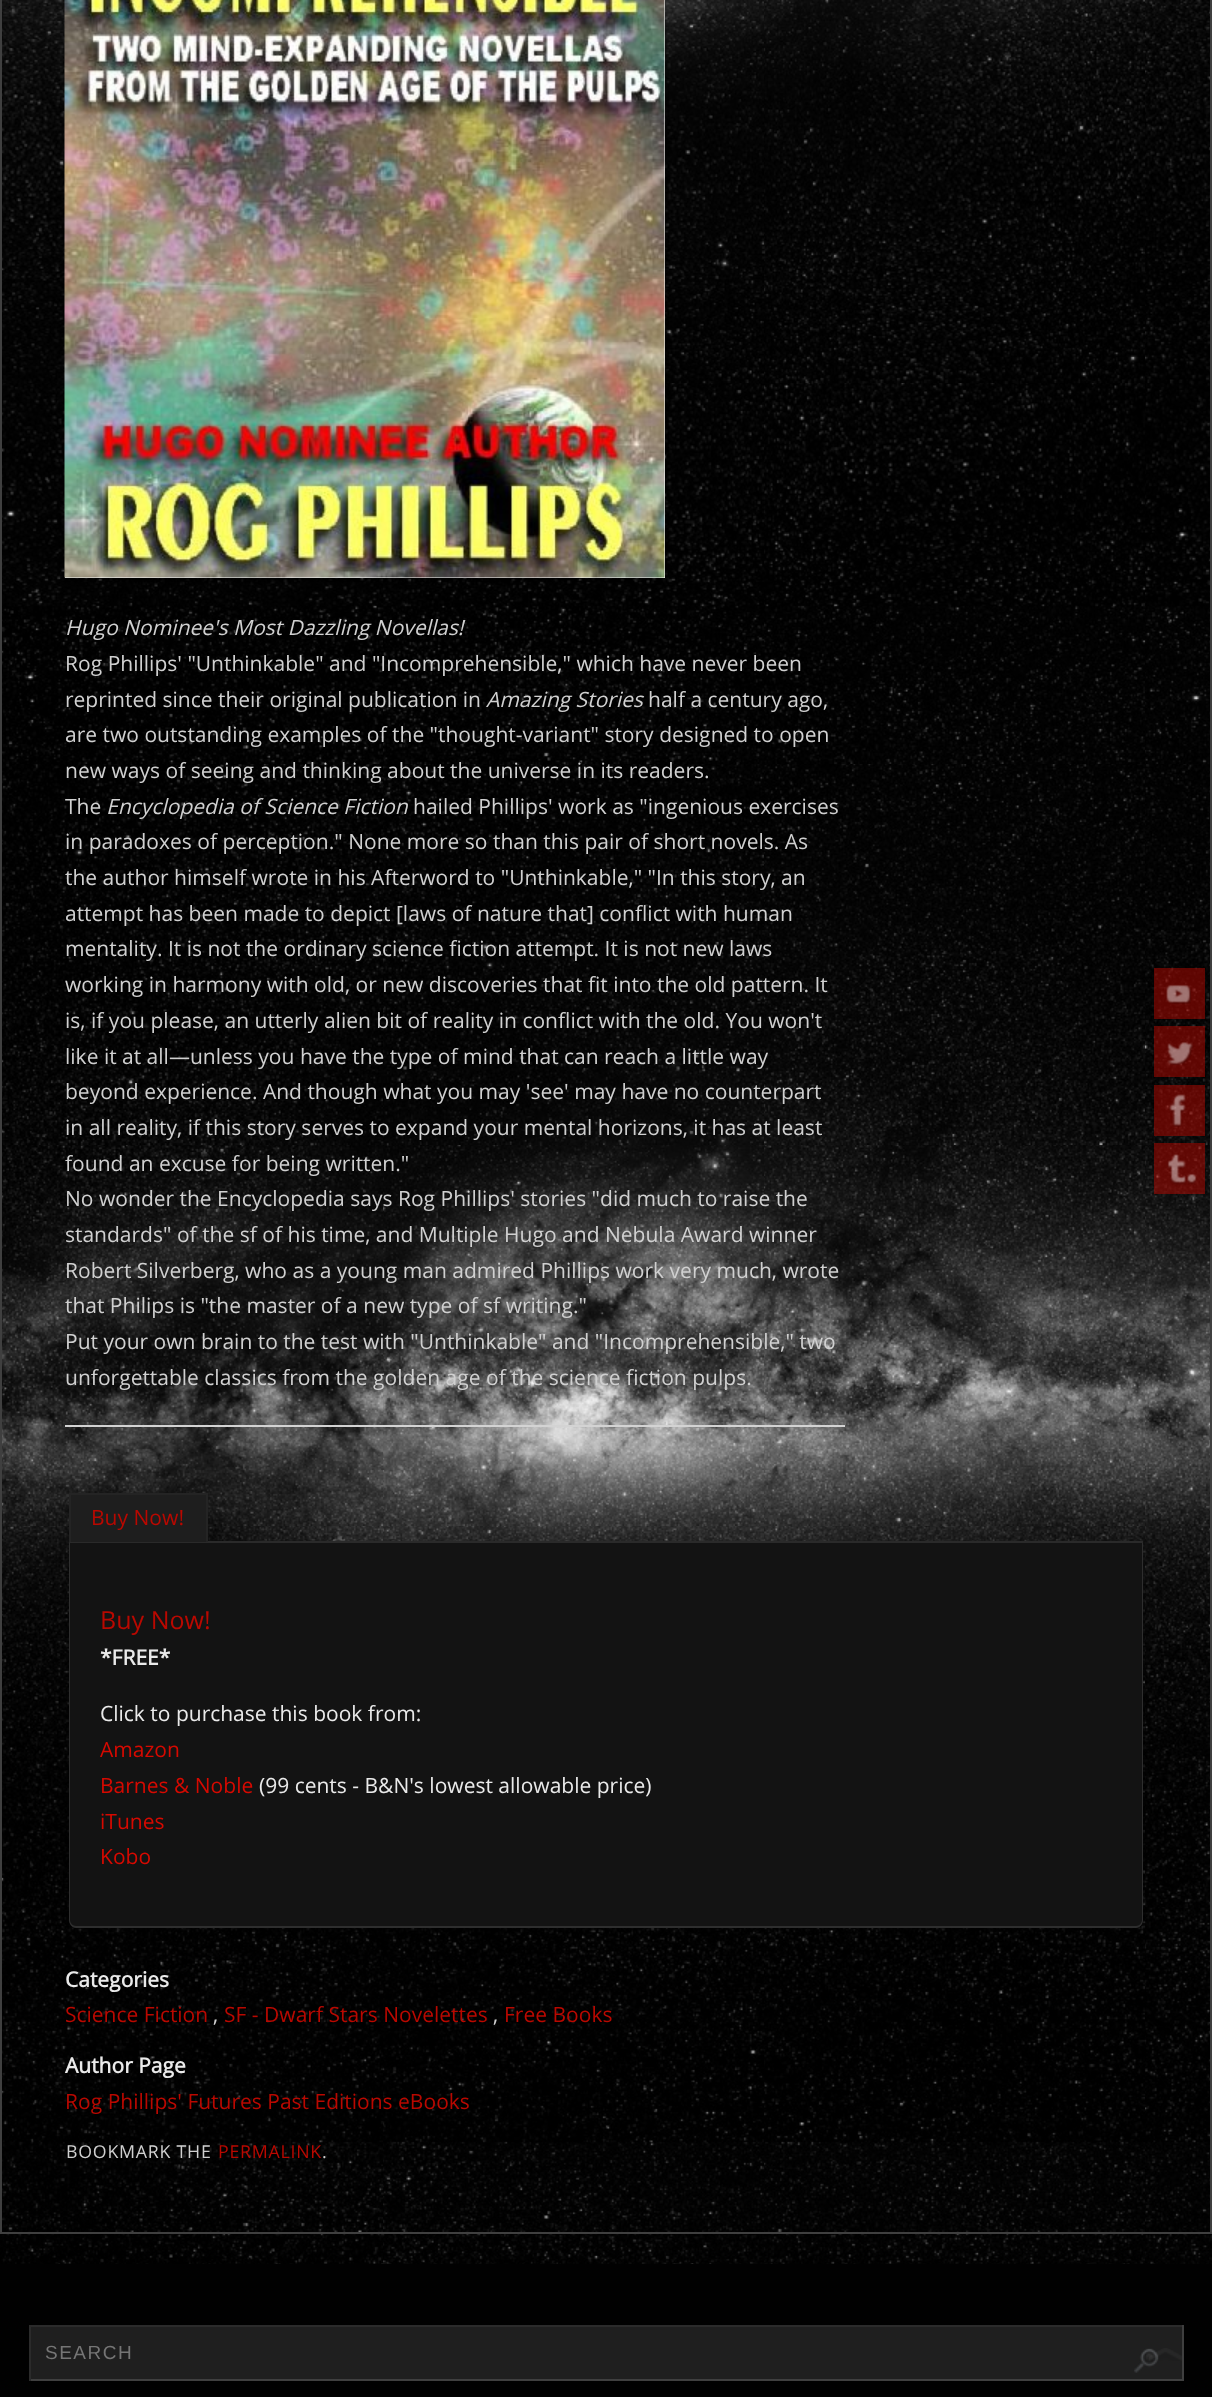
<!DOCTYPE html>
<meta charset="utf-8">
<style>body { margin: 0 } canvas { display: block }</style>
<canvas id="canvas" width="1212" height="2397"></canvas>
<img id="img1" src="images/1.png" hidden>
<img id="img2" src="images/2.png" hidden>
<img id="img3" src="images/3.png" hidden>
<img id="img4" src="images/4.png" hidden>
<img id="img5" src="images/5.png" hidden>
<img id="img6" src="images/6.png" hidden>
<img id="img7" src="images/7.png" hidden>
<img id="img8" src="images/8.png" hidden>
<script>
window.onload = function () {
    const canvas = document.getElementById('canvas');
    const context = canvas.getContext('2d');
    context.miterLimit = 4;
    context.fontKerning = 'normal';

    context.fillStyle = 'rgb(255, 255, 255)';
    context.fillRect(0, 0, 1212, 2397);
    context.drawImage(document.getElementById('img1'), 0, 0, 1212, 2264);
    context.strokeStyle = 'rgb(63, 63, 63)';
    context.lineWidth = 2;
    context.strokeRect(1, -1, 1210, 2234);
    context.fillStyle = 'rgba(0, 0, 0, 0.2)';
    context.filter = 'blur(1.5px)';
    context.beginPath();
    context.rect(66, -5, 600, 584);
    context.fill();
    context.filter = 'none';
    context.fillStyle = 'rgb(255, 255, 255)';
    context.fillRect(65, 0, 600, 578);
    context.drawImage(document.getElementById('img2'), 64, 0, 601, 578);
    context.fillStyle = 'rgb(211, 211, 211)';
    context.fillRect(65, 1425, 780, 2);
    context.fillStyle = 'rgb(19, 19, 19)';
    context.beginPath();
    context.roundRect(69, 1542, 1074, 386, [0, 0, 8, 8]);
    context.fill();
    context.fillStyle = 'rgb(46, 46, 46)';
    context.beginPath();
    context.moveTo(69, 1542);
    context.lineTo(1143, 1542);
    context.lineTo(1143, 1920);
    context.bezierCurveTo(1143, 1924, 1140, 1928, 1136, 1928);
    context.lineTo(76, 1928);
    context.bezierCurveTo(72, 1928, 69, 1924, 69, 1920);
    context.closePath();
    context.moveTo(70, 1542);
    context.lineTo(1142, 1542);
    context.lineTo(1142, 1920);
    context.bezierCurveTo(1142, 1923, 1139, 1926, 1136, 1926);
    context.lineTo(76, 1926);
    context.bezierCurveTo(73, 1926, 70, 1923, 70, 1920);
    context.closePath();
    context.fill('evenodd');
    context.fillStyle = 'rgb(42, 42, 42)';
    context.fillRect(69, 1541, 1074, 2);
    context.fillStyle = 'rgb(30, 30, 30)';
    context.fillRect(71, 1495, 135, 47);
    context.fillStyle = 'rgb(36, 36, 36)';
    context.fillRect(69, 1493, 138, 2);
    context.fillRect(206, 1493, 2, 49);
    context.fillRect(69, 1493, 2, 49);
    context.fillStyle = 'rgba(185, 8, 0, 0.5)';
    context.fillRect(1154, 968, 51, 51);
    context.drawImage(document.getElementById('img3'), 1166, 984, 25, 20);
    context.fillRect(1154, 1026, 51, 51);
    context.drawImage(document.getElementById('img4'), 1167, 1041, 26, 24);
    context.fillRect(1154, 1085, 51, 51);
    context.drawImage(document.getElementById('img5'), 1169, 1094, 17, 33);
    context.fillRect(1154, 1143, 51, 51);
    context.drawImage(document.getElementById('img6'), 1167, 1154, 30, 31);
    context.fillStyle = 'rgb(1, 1, 1)';
    context.fillRect(0, 2264, 1212, 133);
    context.fillStyle = 'rgb(31, 31, 31)';
    context.fillRect(31, 2327, 1151, 52);
    context.fillStyle = 'rgb(43, 43, 43)';
    context.fillRect(29, 2325, 1155, 2);
    context.fillStyle = 'rgb(63, 63, 63)';
    context.fillRect(1182, 2325, 2, 56);
    context.fillRect(29, 2379, 1155, 2);
    context.fillStyle = 'rgb(43, 43, 43)';
    context.fillRect(29, 2325, 2, 56);
    context.drawImage(document.getElementById('img7'), 1134, 2348, 25, 25);
    context.drawImage(document.getElementById('img8'), 1149, 2348, 33, 13);
    context.font = 'italic 21px Open Sans';
    context.fillStyle = 'rgb(208, 208, 208)';
    context.fillText('Hugo Nominee\'s Most Dazzling Novellas!', 65, 635);
    context.font = '21px Open Sans';
    context.fillText('Rog Phillips\' "Unthinkable" and "Incomprehensible," which have never been', 65, 671);
    context.fillText('reprinted since their original publication in', 65, 707);
    context.font = 'italic 21px Open Sans';
    context.fillText('Amazing Stories', 486, 707);
    context.font = '21px Open Sans';
    context.fillText('half a century ago,', 648, 707);
    context.fillText('are two outstanding examples of the "thought-variant" story designed to open', 65, 742);
    context.fillText('new ways of seeing and thinking about the universe in its readers.', 65, 778);
    context.fillText('The', 65, 814);
    context.font = 'italic 21px Open Sans';
    context.fillText('Encyclopedia of Science Fiction', 106, 814);
    context.font = '21px Open Sans';
    context.fillText('hailed Phillips\' work as "ingenious exercises', 413, 814);
    context.fillText('in paradoxes of perception." None more so than this pair of short novels. As', 65, 849);
    context.fillText('the author himself wrote in his Afterword to "Unthinkable," "In this story, an', 65, 885);
    context.fillText('attempt has been made to depict [laws of nature that] conflict with human', 65, 921);
    context.fillText('mentality. It is not the ordinary science fiction attempt. It is not new laws', 65, 956);
    context.fillText('working in harmony with old, or new discoveries that fit into the old pattern. It', 65, 992);
    context.fillText('is, if you please, an utterly alien bit of reality in conflict with the old. You won\'t', 65, 1028);
    context.fillText('like it at all—unless you have the type of mind that can reach a little way', 65, 1064);
    context.fillText('beyond experience. And though what you may \'see\' may have no counterpart', 65, 1099);
    context.fillText('in all reality, if this story serves to expand your mental horizons, it has at least', 65, 1135);
    context.fillText('found an excuse for being written."', 65, 1171);
    context.fillText('No wonder the Encyclopedia says Rog Phillips\' stories "did much to raise the', 65, 1206);
    context.fillText('standards" of the sf of his time, and Multiple Hugo and Nebula Award winner', 65, 1242);
    context.fillText('Robert Silverberg, who as a young man admired Phillips work very much, wrote', 65, 1278);
    context.fillText('that Philips is "the master of a new type of sf writing."', 65, 1313);
    context.fillText('Put your own brain to the test with "Unthinkable" and "Incomprehensible," two', 65, 1349);
    context.fillText('unforgettable classics from the golden age of the science fiction pulps.', 65, 1385);
    context.fillStyle = 'rgb(185, 8, 0)';
    context.fillText('Buy Now!', 91, 1525);
    context.font = '25px Open Sans';
    context.fillText('Buy Now!', 100, 1629);
    context.font = 'bold 21px Open Sans';
    context.fillStyle = 'rgb(234, 234, 234)';
    context.fillText('*FREE*', 100, 1665);
    context.font = '21px Open Sans';
    context.fillText('Click to purchase this book from:', 100, 1721);
    context.fillStyle = 'rgb(214, 9, 0)';
    context.fillText('Amazon', 100, 1757);
    context.fillText('Barnes & Noble', 100, 1793);
    context.fillStyle = 'rgb(234, 234, 234)';
    context.fillText('(99 cents - B&N\'s lowest allowable price)', 259, 1793);
    context.fillStyle = 'rgb(214, 9, 0)';
    context.fillText('iTunes', 100, 1829);
    context.fillText('Kobo', 100, 1864);
    context.font = 'bold 21px Open Sans';
    context.fillStyle = 'rgb(234, 234, 234)';
    context.fillText('Categories', 65, 1987);
    context.font = '21px Open Sans';
    context.fillStyle = 'rgb(185, 8, 0)';
    context.fillText('Science Fiction', 65, 2022);
    context.fillStyle = 'rgb(208, 208, 208)';
    context.fillText(',', 213, 2022);
    context.fillStyle = 'rgb(185, 8, 0)';
    context.fillText('SF - Dwarf Stars Novelettes', 224, 2022);
    context.fillStyle = 'rgb(208, 208, 208)';
    context.fillText(',', 493, 2022);
    context.fillStyle = 'rgb(185, 8, 0)';
    context.fillText('Free Books', 504, 2022);
    context.font = 'bold 21px Open Sans';
    context.fillStyle = 'rgb(234, 234, 234)';
    context.fillText('Author Page', 65, 2073);
    context.font = '21px Open Sans';
    context.fillStyle = 'rgb(185, 8, 0)';
    context.fillText('Rog Phillips\' Futures Past Editions eBooks', 65, 2109);
    context.letterSpacing = '0.75px';
    context.font = '17.75px Open Sans';
    context.fillStyle = 'rgb(208, 208, 208)';
    context.fillText('BOOKMARK THE', 66, 2158);
    context.fillStyle = 'rgb(185, 8, 0)';
    context.fillText('PERMALINK', 218, 2158);
    context.fillStyle = 'rgb(208, 208, 208)';
    context.fillText('.', 322, 2158);
    context.letterSpacing = '1.5px';
    context.font = '19px Liberation Sans';
    context.fillStyle = 'rgb(117, 117, 117)';
    context.fillText('SEARCH', 45, 2359);
};
</script>
